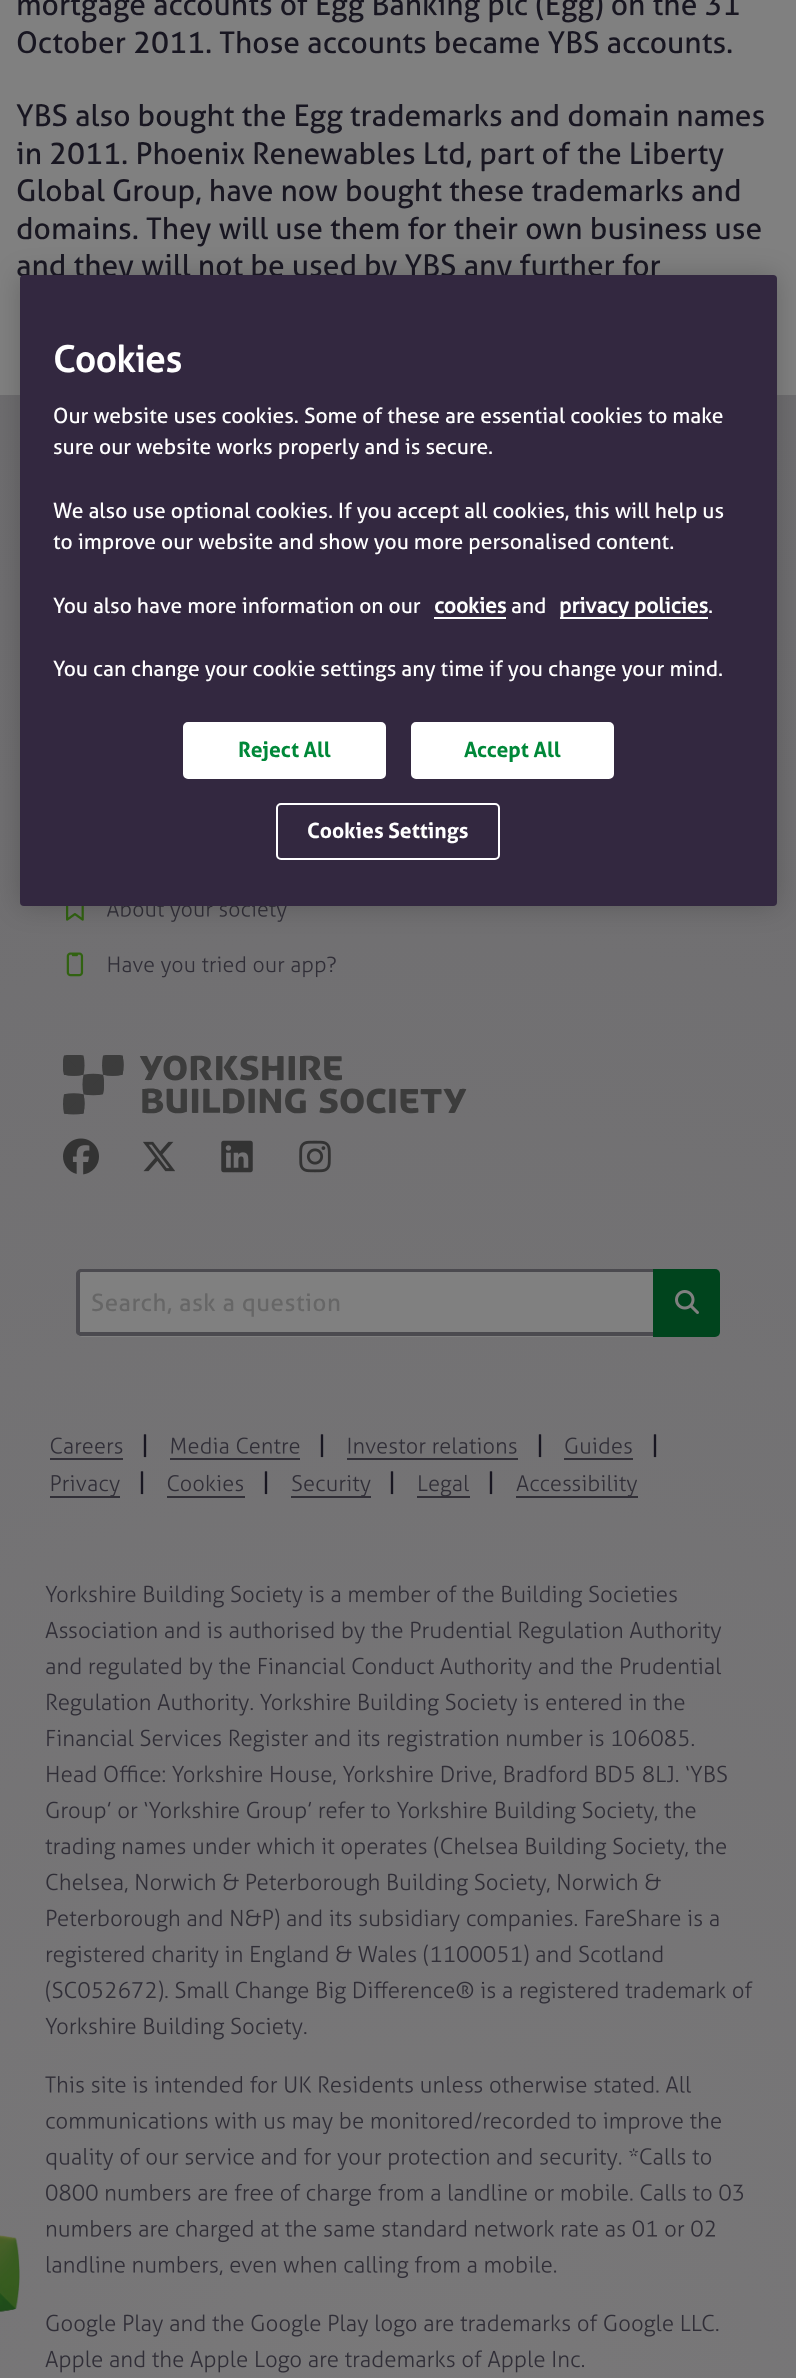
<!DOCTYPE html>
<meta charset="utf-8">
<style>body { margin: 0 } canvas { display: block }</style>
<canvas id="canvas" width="796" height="2378"></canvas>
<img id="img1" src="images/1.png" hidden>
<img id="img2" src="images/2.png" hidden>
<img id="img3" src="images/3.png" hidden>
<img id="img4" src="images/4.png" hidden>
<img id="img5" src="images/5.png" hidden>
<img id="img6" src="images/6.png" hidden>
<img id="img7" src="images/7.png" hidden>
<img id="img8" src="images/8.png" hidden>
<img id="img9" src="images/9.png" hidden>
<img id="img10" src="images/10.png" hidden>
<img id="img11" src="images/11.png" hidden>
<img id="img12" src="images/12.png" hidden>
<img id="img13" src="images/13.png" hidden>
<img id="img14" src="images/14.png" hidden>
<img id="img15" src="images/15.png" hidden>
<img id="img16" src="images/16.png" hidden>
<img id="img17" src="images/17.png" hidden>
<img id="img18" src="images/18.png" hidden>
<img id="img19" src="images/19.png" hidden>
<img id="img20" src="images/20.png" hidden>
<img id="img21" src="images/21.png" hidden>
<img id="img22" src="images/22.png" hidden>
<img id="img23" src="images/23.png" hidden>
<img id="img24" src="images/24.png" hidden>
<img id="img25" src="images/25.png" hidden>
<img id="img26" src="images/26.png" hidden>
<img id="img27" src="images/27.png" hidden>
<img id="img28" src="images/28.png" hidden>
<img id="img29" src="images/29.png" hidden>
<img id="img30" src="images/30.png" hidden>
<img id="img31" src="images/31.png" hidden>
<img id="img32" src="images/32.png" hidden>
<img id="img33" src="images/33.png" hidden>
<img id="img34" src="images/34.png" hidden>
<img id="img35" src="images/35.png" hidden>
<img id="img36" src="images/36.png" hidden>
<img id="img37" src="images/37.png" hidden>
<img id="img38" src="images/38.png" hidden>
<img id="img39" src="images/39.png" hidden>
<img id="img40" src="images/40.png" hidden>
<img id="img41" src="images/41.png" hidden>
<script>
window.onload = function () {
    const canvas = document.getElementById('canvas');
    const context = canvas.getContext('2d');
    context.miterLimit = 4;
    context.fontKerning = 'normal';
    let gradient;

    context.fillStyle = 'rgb(128, 128, 128)';
    context.fillRect(0, 0, 796, 2378);
    gradient = context.createRadialGradient(398, 2424, 0, 398, 2424, 3524);
    gradient.addColorStop(0, 'rgb(121, 120, 121)');
    gradient.addColorStop(1, 'rgb(102, 101, 104)');
    context.fillStyle = gradient;
    context.fillRect(0, 395, 796, 1983);
    context.drawImage(document.getElementById('img1'), 66, 906, 18, 15);
    context.drawImage(document.getElementById('img2'), 107, 906, 180, 16);
    context.drawImage(document.getElementById('img3'), 66, 952, 18, 25);
    context.drawImage(document.getElementById('img4'), 108, 956, 228, 22);
    context.drawImage(document.getElementById('img5'), 63, 1055, 404, 60);
    context.drawImage(document.getElementById('img6'), 63, 1138, 36, 37);
    context.drawImage(document.getElementById('img7'), 143, 1141, 32, 31);
    context.drawImage(document.getElementById('img8'), 221, 1140, 32, 33);
    context.drawImage(document.getElementById('img9'), 299, 1140, 32, 33);
    context.fillStyle = 'rgb(128, 128, 128)';
    context.beginPath();
    context.roundRect(77, 1269, 589, 68, [5, 0, 0, 5]);
    context.fill();
    context.fillStyle = 'rgb(75, 74, 79)';
    context.beginPath();
    context.moveTo(81, 1269);
    context.lineTo(666, 1269);
    context.lineTo(666, 1336);
    context.lineTo(81, 1336);
    context.bezierCurveTo(79, 1336, 76, 1334, 76, 1332);
    context.lineTo(76, 1274);
    context.bezierCurveTo(76, 1271, 79, 1269, 81, 1269);
    context.closePath();
    context.moveTo(81, 1272);
    context.lineTo(666, 1272);
    context.lineTo(666, 1332);
    context.lineTo(81, 1332);
    context.lineTo(80, 1332);
    context.lineTo(80, 1274);
    context.bezierCurveTo(80, 1273, 80, 1272, 81, 1272);
    context.closePath();
    context.fill('evenodd');
    context.fillStyle = 'rgb(0, 68, 29)';
    context.beginPath();
    context.roundRect(653, 1269, 67, 68, [0, 5, 5, 0]);
    context.fill();
    context.drawImage(document.getElementById('img10'), 675, 1290, 24, 24);
    context.drawImage(document.getElementById('img11'), 50, 1437, 73, 17);
    context.fillStyle = 'rgb(49, 47, 55)';
    context.fillRect(50, 1458, 73, 2);
    context.drawImage(document.getElementById('img12'), 171, 1437, 129, 17);
    context.fillRect(170, 1458, 130, 2);
    context.drawImage(document.getElementById('img13'), 348, 1437, 169, 17);
    context.fillRect(347, 1458, 171, 2);
    context.drawImage(document.getElementById('img14'), 565, 1437, 67, 17);
    context.fillRect(564, 1458, 69, 2);
    context.drawImage(document.getElementById('img15'), 51, 1475, 69, 21);
    context.fillRect(50, 1496, 70, 2);
    context.drawImage(document.getElementById('img16'), 167, 1474, 76, 18);
    context.fillRect(167, 1496, 78, 2);
    context.drawImage(document.getElementById('img17'), 292, 1475, 79, 21);
    context.fillRect(291, 1496, 80, 2);
    context.drawImage(document.getElementById('img18'), 419, 1474, 50, 22);
    context.fillRect(417, 1496, 53, 2);
    context.drawImage(document.getElementById('img19'), 516, 1474, 121, 22);
    context.fillRect(516, 1496, 122, 2);
    context.drawImage(document.getElementById('img20'), 45, 1585, 632, 23);
    context.drawImage(document.getElementById('img21'), 45, 1621, 677, 23);
    context.drawImage(document.getElementById('img22'), 46, 1657, 676, 23);
    context.drawImage(document.getElementById('img23'), 47, 1693, 638, 23);
    context.drawImage(document.getElementById('img24'), 47, 1729, 647, 23);
    context.drawImage(document.getElementById('img25'), 47, 1765, 680, 20);
    context.drawImage(document.getElementById('img26'), 46, 1801, 650, 23);
    context.drawImage(document.getElementById('img27'), 45, 1836, 681, 24);
    context.drawImage(document.getElementById('img28'), 46, 1873, 615, 23);
    context.drawImage(document.getElementById('img29'), 47, 1908, 672, 24);
    context.drawImage(document.getElementById('img30'), 46, 1944, 617, 24);
    context.drawImage(document.getElementById('img31'), 46, 1980, 707, 24);
    context.drawImage(document.getElementById('img32'), 45, 2017, 262, 23);
    context.drawImage(document.getElementById('img33'), 45, 2075, 646, 18);
    context.drawImage(document.getElementById('img34'), 46, 2112, 675, 23);
    context.drawImage(document.getElementById('img35'), 46, 2147, 666, 24);
    context.drawImage(document.getElementById('img36'), 46, 2183, 697, 24);
    context.drawImage(document.getElementById('img37'), 46, 2220, 669, 23);
    context.drawImage(document.getElementById('img38'), 46, 2255, 511, 24);
    context.drawImage(document.getElementById('img39'), 46, 2314, 673, 23);
    context.drawImage(document.getElementById('img40'), 45, 2350, 539, 23);
    context.drawImage(document.getElementById('img41'), 0, 2235, 20, 77);
    context.fillStyle = 'rgba(0, 0, 0, 0.2)';
    context.filter = 'blur(13.5px)';
    context.beginPath();
    context.roundRect(20, 275, 757, 631, 4);
    context.fill();
    context.filter = 'none';
    context.font = '30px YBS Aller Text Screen';
    context.fillStyle = 'rgb(24, 22, 33)';
    context.fillText('mortgage accounts of Egg Banking plc (Egg) on the 31', 16, 15);
    context.fillText('October 2011. Those accounts became YBS accounts.', 16, 53);
    context.fillText('YBS also bought the Egg trademarks and domain names', 16, 126);
    context.fillText('in 2011. Phoenix Renewables Ltd, part of the Liberty', 16, 164);
    context.fillText('Global Group, have now bought these trademarks and', 16, 201);
    context.fillText('domains. They will use them for their own business use', 16, 239);
    context.fillText('and they will not be used by YBS any further for', 16, 276);
    context.letterSpacing = '0.55px';
    context.font = '24px YBS Aller Text Screen';
    context.fillStyle = 'rgb(102, 102, 102)';
    context.fillText('Search, ask a question', 91, 1311);
    context.letterSpacing = '0px';
    context.fillStyle = 'rgb(24, 22, 33)';
    context.fillText('|', 141, 1453);
    context.fillText('|', 318, 1453);
    context.fillText('|', 536, 1453);
    context.fillText('|', 651, 1453);
    context.fillText('|', 138, 1490);
    context.fillText('|', 262, 1490);
    context.fillText('|', 388, 1490);
    context.fillText('|', 487, 1490);
    context.fillStyle = 'rgb(51, 40, 64)';
    context.beginPath();
    context.roundRect(20, 275, 757, 631, 4);
    context.fill();
    context.font = 'bold 36px YBS Aller Text Screen';
    context.fillStyle = 'rgb(255, 255, 255)';
    context.fillText('Cookies', 53, 372);
    context.font = '21.1px YBS Aller Text Screen';
    context.fillText('Our website uses cookies. Some of these are essential cookies to make', 53, 423);
    context.fillText('sure our website works properly and is secure.', 53, 454);
    context.fillText('We also use optional cookies. If you accept all cookies, this will help us', 53, 518);
    context.fillText('to improve our website and show you more personalised content.', 53, 549);
    context.fillText('You also have more information on our', 53, 613);
    context.font = 'bold 21.1px YBS Aller Text Screen';
    context.fillText('cookies', 434, 613);
    context.fillRect(434, 617, 72, 2);
    context.font = '21.1px YBS Aller Text Screen';
    context.fillText('and', 511, 613);
    context.fillRect(560, 617, 148, 2);
    context.font = 'bold 21.1px YBS Aller Text Screen';
    context.fillText('privacy policies', 559, 613);
    context.font = '21.1px YBS Aller Text Screen';
    context.fillText('.', 708, 613);
    context.fillText('You can change your cookie settings any time if you change your mind.', 53, 676);
    context.beginPath();
    context.roundRect(184, 723, 201, 55, 4);
    context.fill();
    context.strokeStyle = 'rgb(255, 255, 255)';
    context.lineWidth = 2;
    context.stroke();
    context.font = 'bold 21.1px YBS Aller';
    context.fillStyle = 'rgb(0, 136, 57)';
    context.fillText('Reject All', 238, 757);
    context.fillStyle = 'rgb(255, 255, 255)';
    context.beginPath();
    context.roundRect(412, 723, 201, 55, 4);
    context.fill();
    context.stroke();
    context.fillStyle = 'rgb(0, 136, 57)';
    context.fillText('Accept All', 464, 757);
    context.beginPath();
    context.roundRect(277, 804, 222, 55, 4);
    context.stroke();
    context.fillStyle = 'rgb(255, 255, 255)';
    context.fillText('Cookies Settings', 307, 838);
};
</script>
